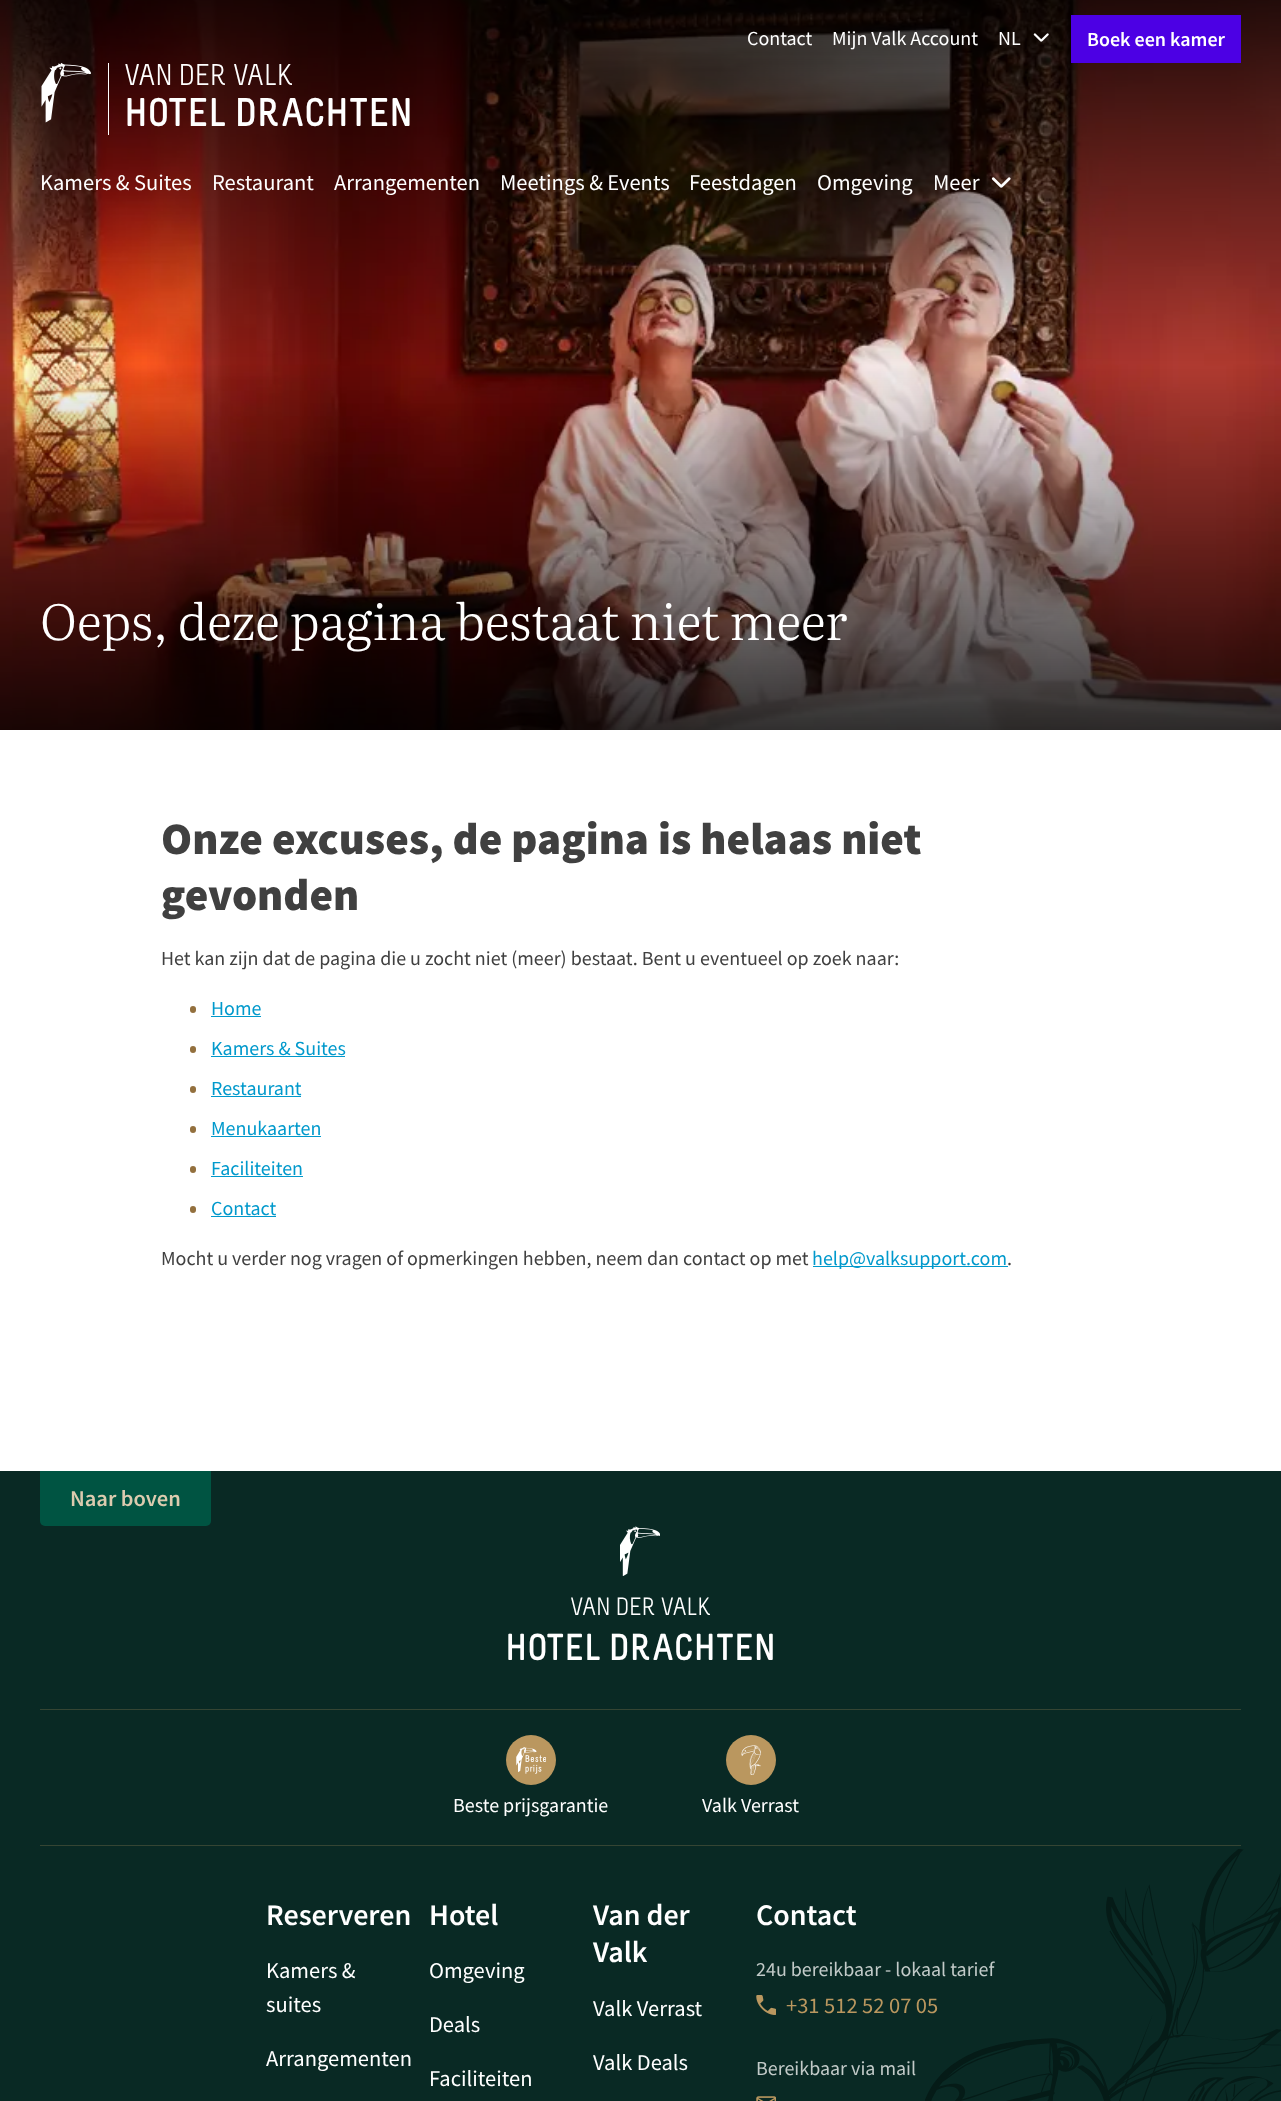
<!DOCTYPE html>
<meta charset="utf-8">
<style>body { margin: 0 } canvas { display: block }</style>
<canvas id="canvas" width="1281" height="2101"></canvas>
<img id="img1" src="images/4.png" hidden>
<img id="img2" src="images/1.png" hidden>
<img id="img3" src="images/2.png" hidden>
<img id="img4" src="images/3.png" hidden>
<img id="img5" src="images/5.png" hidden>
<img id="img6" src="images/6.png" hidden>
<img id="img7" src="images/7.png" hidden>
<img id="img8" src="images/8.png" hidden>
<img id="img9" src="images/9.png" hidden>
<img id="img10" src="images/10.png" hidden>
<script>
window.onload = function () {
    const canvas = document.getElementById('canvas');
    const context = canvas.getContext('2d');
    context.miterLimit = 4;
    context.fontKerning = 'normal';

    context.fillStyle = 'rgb(255, 255, 255)';
    context.fillRect(0, 0, 1281, 2101);
    context.drawImage(document.getElementById('img1'), 0, 0, 1281, 730);
    context.drawImage(document.getElementById('img2'), 1033, 33, 16, 9);
    context.fillStyle = 'rgb(76, 0, 228)';
    context.fillRect(1071, 15, 170, 48);
    context.drawImage(document.getElementById('img3'), 41, 63, 50, 60);
    context.fillStyle = 'rgb(255, 255, 255)';
    context.fillRect(108, 63, 1, 72);
    context.drawImage(document.getElementById('img4'), 991, 177, 20, 11);
    context.fillStyle = 'rgb(147, 112, 62)';
    context.beginPath();
    context.roundRect(190, 1006, 6, 7, 3);
    context.fill();
    context.fillStyle = 'rgb(0, 153, 204)';
    context.fillRect(211, 1016, 50, 1);
    context.fillStyle = 'rgb(147, 112, 62)';
    context.beginPath();
    context.roundRect(190, 1046, 6, 7, 3);
    context.fill();
    context.fillStyle = 'rgb(0, 153, 204)';
    context.fillRect(211, 1056, 134, 1);
    context.fillStyle = 'rgb(147, 112, 62)';
    context.beginPath();
    context.roundRect(190, 1086, 6, 7, 3);
    context.fill();
    context.fillStyle = 'rgb(0, 153, 204)';
    context.fillRect(211, 1096, 90, 1);
    context.fillStyle = 'rgb(147, 112, 62)';
    context.beginPath();
    context.roundRect(190, 1126, 6, 7, 3);
    context.fill();
    context.fillStyle = 'rgb(0, 153, 204)';
    context.fillRect(211, 1136, 110, 1);
    context.fillStyle = 'rgb(147, 112, 62)';
    context.beginPath();
    context.roundRect(190, 1166, 6, 7, 3);
    context.fill();
    context.fillStyle = 'rgb(0, 153, 204)';
    context.fillRect(211, 1176, 92, 1);
    context.fillStyle = 'rgb(147, 112, 62)';
    context.beginPath();
    context.roundRect(190, 1206, 6, 7, 3);
    context.fill();
    context.fillStyle = 'rgb(0, 153, 204)';
    context.fillRect(211, 1216, 65, 1);
    context.fillRect(813, 1266, 195, 1);
    context.fillStyle = 'rgb(9, 41, 36)';
    context.fillRect(0, 1471, 1281, 630);
    context.drawImage(document.getElementById('img5'), 925, 1849, 356, 252);
    context.fillStyle = 'rgb(0, 84, 66)';
    context.beginPath();
    context.roundRect(40, 1471, 171, 55, [0, 0, 5, 5]);
    context.fill();
    context.drawImage(document.getElementById('img6'), 620, 1526, 40, 50);
    context.fillStyle = 'rgb(53, 69, 51)';
    context.fillRect(40, 1709, 1201, 1);
    context.fillStyle = 'rgb(186, 151, 95)';
    context.beginPath();
    context.arc(531, 1760, 25, 0, 2 * Math.PI);
    context.fill();
    context.drawImage(document.getElementById('img7'), 516, 1747, 30, 27);
    context.beginPath();
    context.arc(751, 1760, 25, 0, 2 * Math.PI);
    context.fill();
    context.drawImage(document.getElementById('img8'), 741, 1745, 20, 30);
    context.fillStyle = 'rgb(53, 69, 51)';
    context.fillRect(40, 1845, 1201, 1);
    context.drawImage(document.getElementById('img9'), 756, 1995, 20, 20);
    context.drawImage(document.getElementById('img10'), 756, 2096, 20, 5);
    context.font = '20px Source Sans Pro';
    context.fillStyle = 'rgb(255, 255, 255)';
    context.fillText('Contact', 747, 45);
    context.fillText('Mijn Valk Account', 832, 45);
    context.fillText('NL', 998, 45);
    context.font = '600 20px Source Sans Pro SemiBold';
    context.fillText('Boek een kamer', 1087, 46);
    context.font = '30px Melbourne';
    context.fillText('VAN DER VALK', 124, 85);
    context.font = 'bold 40px Melbourne';
    context.fillText('HOTEL DRACHTEN', 124, 126);
    context.font = '22.5px Source Sans Pro';
    context.fillText('Kamers & Suites', 40, 190);
    context.fillText('Restaurant', 212, 190);
    context.fillText('Arrangementen', 334, 190);
    context.fillText('Meetings & Events', 500, 190);
    context.fillText('Feestdagen', 689, 190);
    context.fillText('Omgeving', 817, 190);
    context.fillText('Meer', 933, 190);
    context.font = '300 50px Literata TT';
    context.fillText('Oeps, deze pagina bestaat niet meer', 40, 640);
    context.font = '900 45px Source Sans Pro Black';
    context.fillStyle = 'rgb(64, 64, 64)';
    context.fillText('Onze excuses, de pagina is helaas niet', 161, 854);
    context.fillText('gevonden', 161, 910);
    context.font = '20px Source Sans Pro';
    context.fillText('Het kan zijn dat de pagina die u zocht niet (meer) bestaat. Bent u eventueel op zoek naar:', 161, 965);
    context.fillStyle = 'rgb(0, 153, 204)';
    context.fillText('Home', 211, 1015);
    context.fillText('Kamers & Suites', 211, 1055);
    context.fillText('Restaurant', 211, 1095);
    context.fillText('Menukaarten', 211, 1135);
    context.fillText('Faciliteiten', 211, 1175);
    context.fillText('Contact', 211, 1215);
    context.fillStyle = 'rgb(64, 64, 64)';
    context.fillText('Mocht u verder nog vragen of opmerkingen hebben, neem dan contact op met', 161, 1265);
    context.fillStyle = 'rgb(0, 153, 204)';
    context.fillText('help@valksupport.com', 812, 1265);
    context.fillStyle = 'rgb(64, 64, 64)';
    context.fillText('.', 1007, 1265);
    context.font = '600 22.5px Source Sans Pro SemiBold';
    context.fillStyle = 'rgb(220, 203, 175)';
    context.fillText('Naar boven', 70, 1506);
    context.font = '25px Melbourne';
    context.fillStyle = 'rgb(255, 255, 255)';
    context.fillText('VAN DER VALK', 570, 1615);
    context.font = 'bold 37.5px Melbourne';
    context.fillText('HOTEL DRACHTEN', 505, 1660);
    context.font = '20px Source Sans Pro';
    context.fillText('Beste prijsgarantie', 453, 1812);
    context.fillText('Valk Verrast', 702, 1812);
    context.font = '600 30px Source Sans Pro SemiBold';
    context.fillText('Reserveren', 266, 1925);
    context.font = '22.5px Source Sans Pro';
    context.fillText('Kamers &', 266, 1978);
    context.fillText('suites', 266, 2012);
    context.fillText('Arrangementen', 266, 2066);
    context.font = '600 30px Source Sans Pro SemiBold';
    context.fillText('Hotel', 429, 1925);
    context.font = '22.5px Source Sans Pro';
    context.fillText('Omgeving', 429, 1978);
    context.fillText('Deals', 429, 2032);
    context.fillText('Faciliteiten', 429, 2086);
    context.font = '600 30px Source Sans Pro SemiBold';
    context.fillText('Van der', 593, 1925);
    context.fillText('Valk', 593, 1962);
    context.font = '22.5px Source Sans Pro';
    context.fillText('Valk Verrast', 593, 2016);
    context.fillText('Valk Deals', 593, 2070);
    context.font = '600 30px Source Sans Pro SemiBold';
    context.fillText('Contact', 756, 1925);
    context.font = '20px Source Sans Pro';
    context.fillStyle = 'rgb(194, 202, 200)';
    context.fillText('24u bereikbaar - lokaal tarief', 756, 1976);
    context.font = '22.5px Source Sans Pro';
    context.fillStyle = 'rgb(186, 151, 95)';
    context.fillText('+31 512 52 07 05', 786, 2013);
    context.font = '20px Source Sans Pro';
    context.fillStyle = 'rgb(194, 202, 200)';
    context.fillText('Bereikbaar via mail', 756, 2075);
};
</script>
